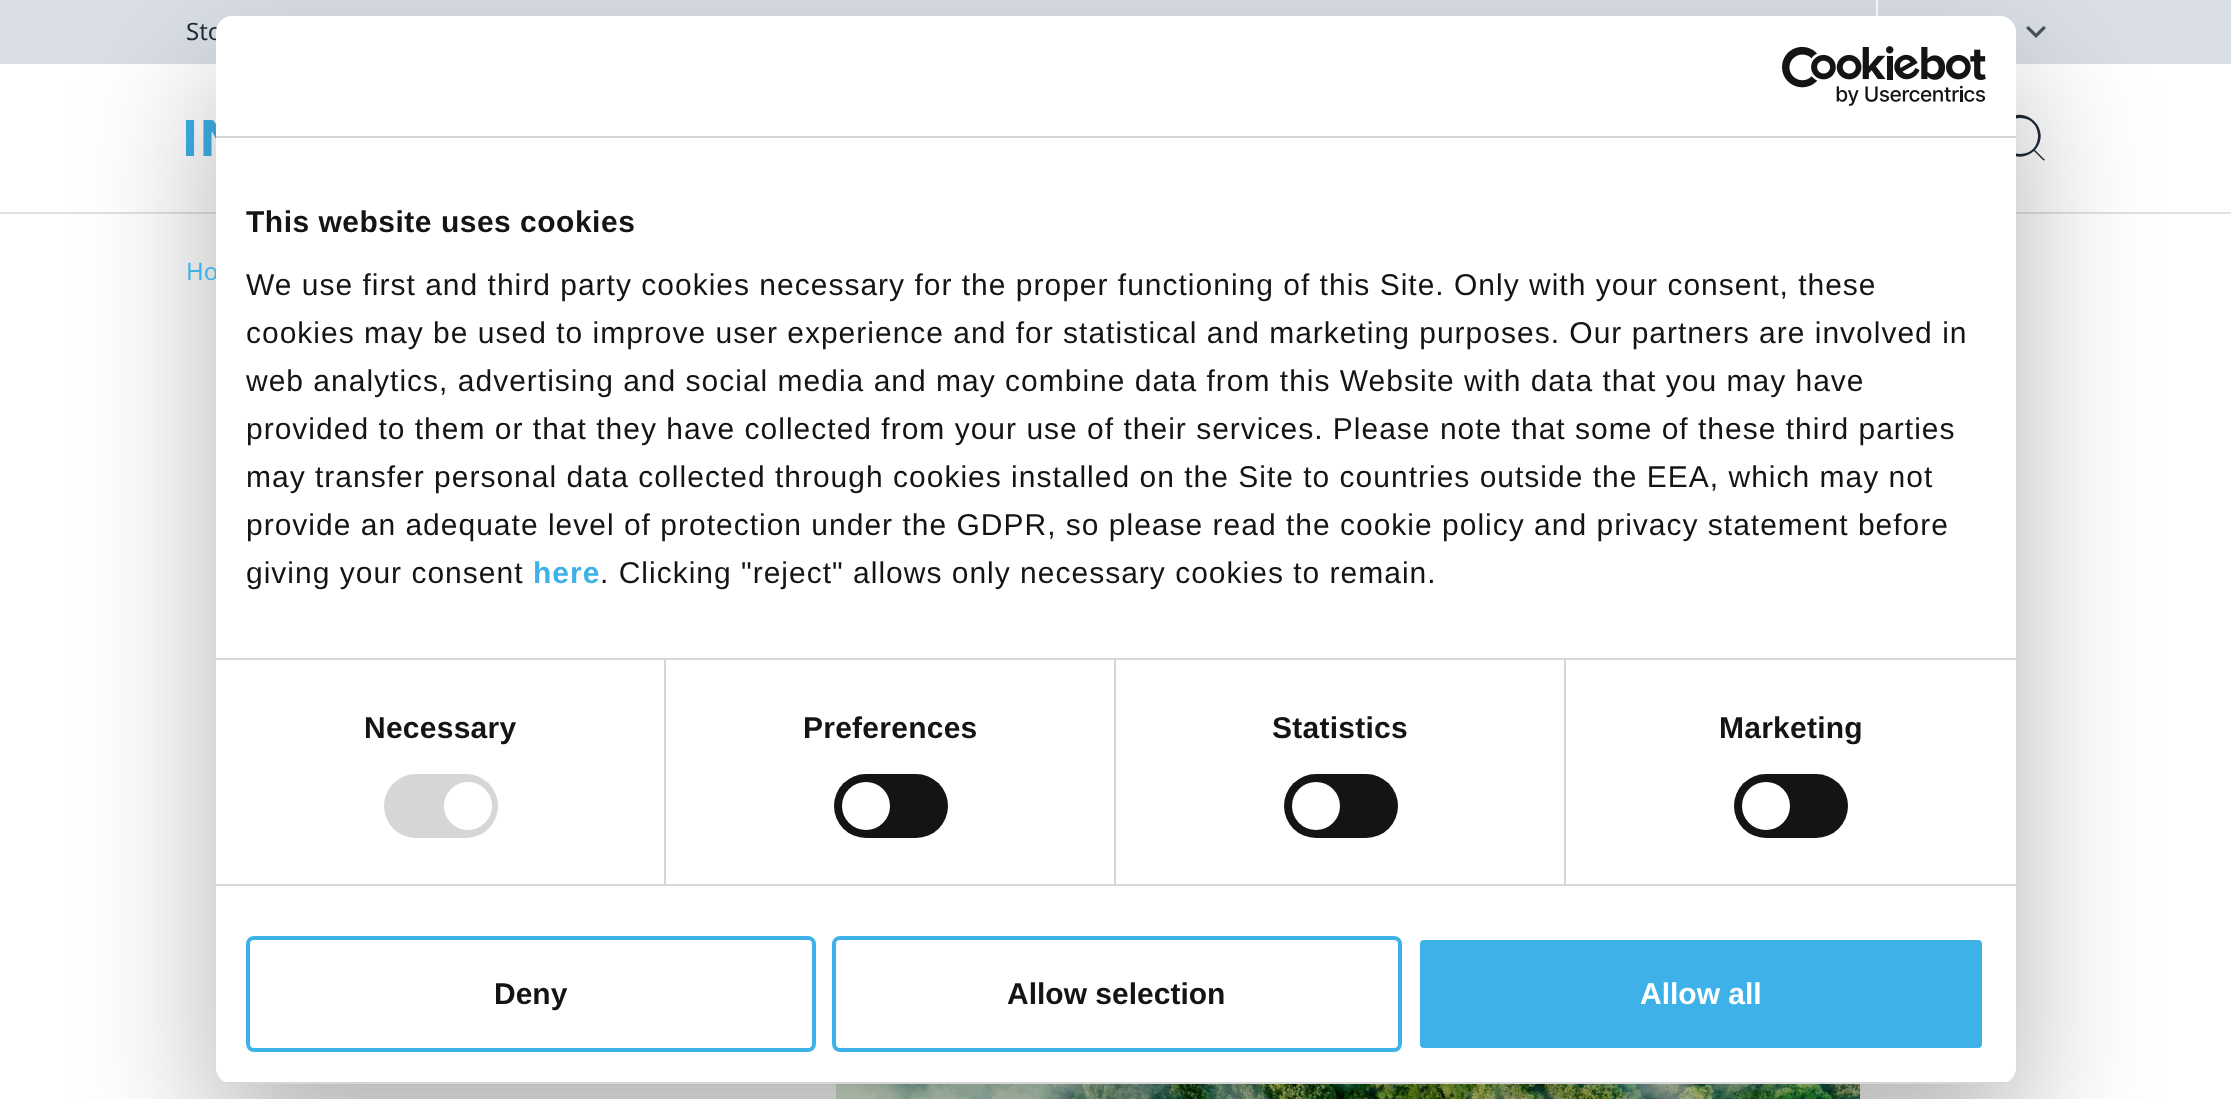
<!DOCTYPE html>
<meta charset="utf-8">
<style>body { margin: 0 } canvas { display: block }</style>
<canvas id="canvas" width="2231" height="1099"></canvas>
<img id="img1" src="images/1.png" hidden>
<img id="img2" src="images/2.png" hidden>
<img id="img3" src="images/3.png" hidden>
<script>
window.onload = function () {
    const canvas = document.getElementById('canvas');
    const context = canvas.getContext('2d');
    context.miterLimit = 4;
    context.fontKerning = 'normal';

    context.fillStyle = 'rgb(255, 255, 255)';
    context.fillRect(0, 0, 2231, 1099);
    context.fillStyle = 'rgb(217, 223, 229)';
    context.fillRect(0, 0, 2231, 64);
    context.fillStyle = 'rgb(255, 255, 255)';
    context.fillRect(1876, 0, 2, 16);
    context.fillStyle = 'rgb(71, 84, 92)';
    context.beginPath();
    context.moveTo(2046, 28);
    context.lineTo(2043.5, 26);
    context.lineTo(2036, 33.5);
    context.lineTo(2028.5, 26);
    context.lineTo(2026, 28);
    context.lineTo(2036, 38);
    context.closePath();
    context.fill();
    context.fillStyle = 'rgb(226, 226, 226)';
    context.fillRect(0, 212, 2231, 2);
    context.drawImage(document.getElementById('img1'), 186, 120, 30, 36);
    context.fillStyle = 'rgb(30, 42, 54)';
    context.beginPath();
    context.moveTo(2044, 159);
    context.lineTo(2035, 150);
    context.bezierCurveTo(2053, 131, 2025, 102, 2005, 121);
    context.bezierCurveTo(1986, 140, 2014, 169, 2034, 151);
    context.lineTo(2043, 160);
    context.bezierCurveTo(2044, 161, 2046, 160, 2044, 159);
    context.closePath();
    context.moveTo(2020, 154);
    context.bezierCurveTo(1996, 154, 1996, 118, 2020, 118);
    context.bezierCurveTo(2044, 118, 2044, 154, 2020, 154);
    context.closePath();
    context.fill();
    context.drawImage(document.getElementById('img2'), 836, 1084, 1024, 15);
    context.fillStyle = 'rgba(0, 0, 0, 0.3)';
    context.filter = 'blur(68px)';
    context.beginPath();
    context.roundRect(216, 80, 1800, 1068, 16);
    context.fill();
    context.filter = 'none';
    context.font = '24px Noto Sans';
    context.fillStyle = 'rgb(30, 42, 54)';
    context.fillText('Sto', 186, 40);
    context.fillStyle = 'rgb(62, 177, 232)';
    context.fillText('Ho', 186, 280);
    context.fillStyle = 'rgb(255, 255, 255)';
    context.beginPath();
    context.roundRect(216, 16, 1800, 1068, 16);
    context.fill();
    context.fillStyle = 'rgb(214, 214, 214)';
    context.fillRect(216, 136, 1800, 2);
    context.drawImage(document.getElementById('img3'), 1782, 46, 204, 60);
    context.fillRect(216, 658, 1800, 2);
    context.letterSpacing = '0.5px';
    context.font = 'bold 30px Liberation Sans';
    context.fillStyle = 'rgb(20, 20, 20)';
    context.fillText('This website uses cookies', 246, 232);
    context.letterSpacing = '1px';
    context.font = '30px Liberation Sans';
    context.fillText('We use first and third party cookies necessary for the proper functioning of this Site. Only with your consent, these', 246, 295);
    context.fillText('cookies may be used to improve user experience and for statistical and marketing purposes. Our partners are involved in', 246, 343);
    context.fillText('web analytics, advertising and social media and may combine data from this Website with data that you may have', 246, 391);
    context.fillText('provided to them or that they have collected from your use of their services. Please note that some of these third parties', 246, 439);
    context.fillText('may transfer personal data collected through cookies installed on the Site to countries outside the EEA, which may not', 246, 487);
    context.fillText('provide an adequate level of protection under the GDPR, so please read the cookie policy and privacy statement before', 246, 535);
    context.fillText('giving your consent', 246, 583);
    context.font = 'bold 30px Liberation Sans';
    context.fillStyle = 'rgb(62, 177, 232)';
    context.fillText('here', 533, 583);
    context.font = '30px Liberation Sans';
    context.fillStyle = 'rgb(20, 20, 20)';
    context.fillText('. Clicking "reject" allows only necessary cookies to remain.', 600, 583);
    context.fillStyle = 'rgb(214, 214, 214)';
    context.fillRect(216, 884, 1800, 2);
    context.fillRect(664, 660, 2, 224);
    context.letterSpacing = '0.25px';
    context.font = 'bold 30px Liberation Sans';
    context.fillStyle = 'rgb(20, 20, 20)';
    context.fillText('Necessary', 364, 738);
    context.fillStyle = 'rgb(214, 214, 214)';
    context.beginPath();
    context.roundRect(384, 774, 114, 64, 32);
    context.fill();
    context.fillStyle = 'rgb(255, 255, 255)';
    context.beginPath();
    context.arc(468, 806, 24, 0, 2 * Math.PI);
    context.fill();
    context.fillStyle = 'rgb(214, 214, 214)';
    context.fillRect(1114, 660, 2, 224);
    context.fillStyle = 'rgb(20, 20, 20)';
    context.fillText('Preferences', 803, 738);
    context.beginPath();
    context.roundRect(834, 774, 114, 64, 32);
    context.fill();
    context.fillStyle = 'rgb(255, 255, 255)';
    context.beginPath();
    context.arc(866, 806, 24, 0, 2 * Math.PI);
    context.fill();
    context.fillStyle = 'rgb(214, 214, 214)';
    context.fillRect(1564, 660, 2, 224);
    context.fillStyle = 'rgb(20, 20, 20)';
    context.fillText('Statistics', 1272, 738);
    context.beginPath();
    context.roundRect(1284, 774, 114, 64, 32);
    context.fill();
    context.fillStyle = 'rgb(255, 255, 255)';
    context.beginPath();
    context.arc(1316, 806, 24, 0, 2 * Math.PI);
    context.fill();
    context.fillStyle = 'rgb(20, 20, 20)';
    context.fillText('Marketing', 1719, 738);
    context.beginPath();
    context.roundRect(1734, 774, 114, 64, 32);
    context.fill();
    context.fillStyle = 'rgb(255, 255, 255)';
    context.beginPath();
    context.arc(1766, 806, 24, 0, 2 * Math.PI);
    context.fill();
    context.save();
    context.beginPath();
    context.roundRect(216, 16, 1800, 1068, 16);
    context.clip();
    context.fillStyle = 'rgb(214, 214, 214)';
    context.fillRect(216, 1082, 1800, 2);
    context.restore();
    context.beginPath();
    context.roundRect(248, 938, 566, 112, 6);
    context.strokeStyle = 'rgb(62, 177, 232)';
    context.lineWidth = 4;
    context.stroke();
    context.letterSpacing = '0px';
    context.fillStyle = 'rgb(20, 20, 20)';
    context.fillText('Deny', 494, 1004);
    context.beginPath();
    context.roundRect(834, 938, 566, 112, 6);
    context.stroke();
    context.fillText('Allow selection', 1007, 1004);
    context.fillStyle = 'rgb(62, 177, 232)';
    context.beginPath();
    context.roundRect(1418, 938, 566, 112, 6);
    context.fill();
    context.strokeStyle = 'rgb(255, 255, 255)';
    context.stroke();
    context.fillStyle = 'rgb(255, 255, 255)';
    context.fillText('Allow all', 1640, 1004);
};
</script>
